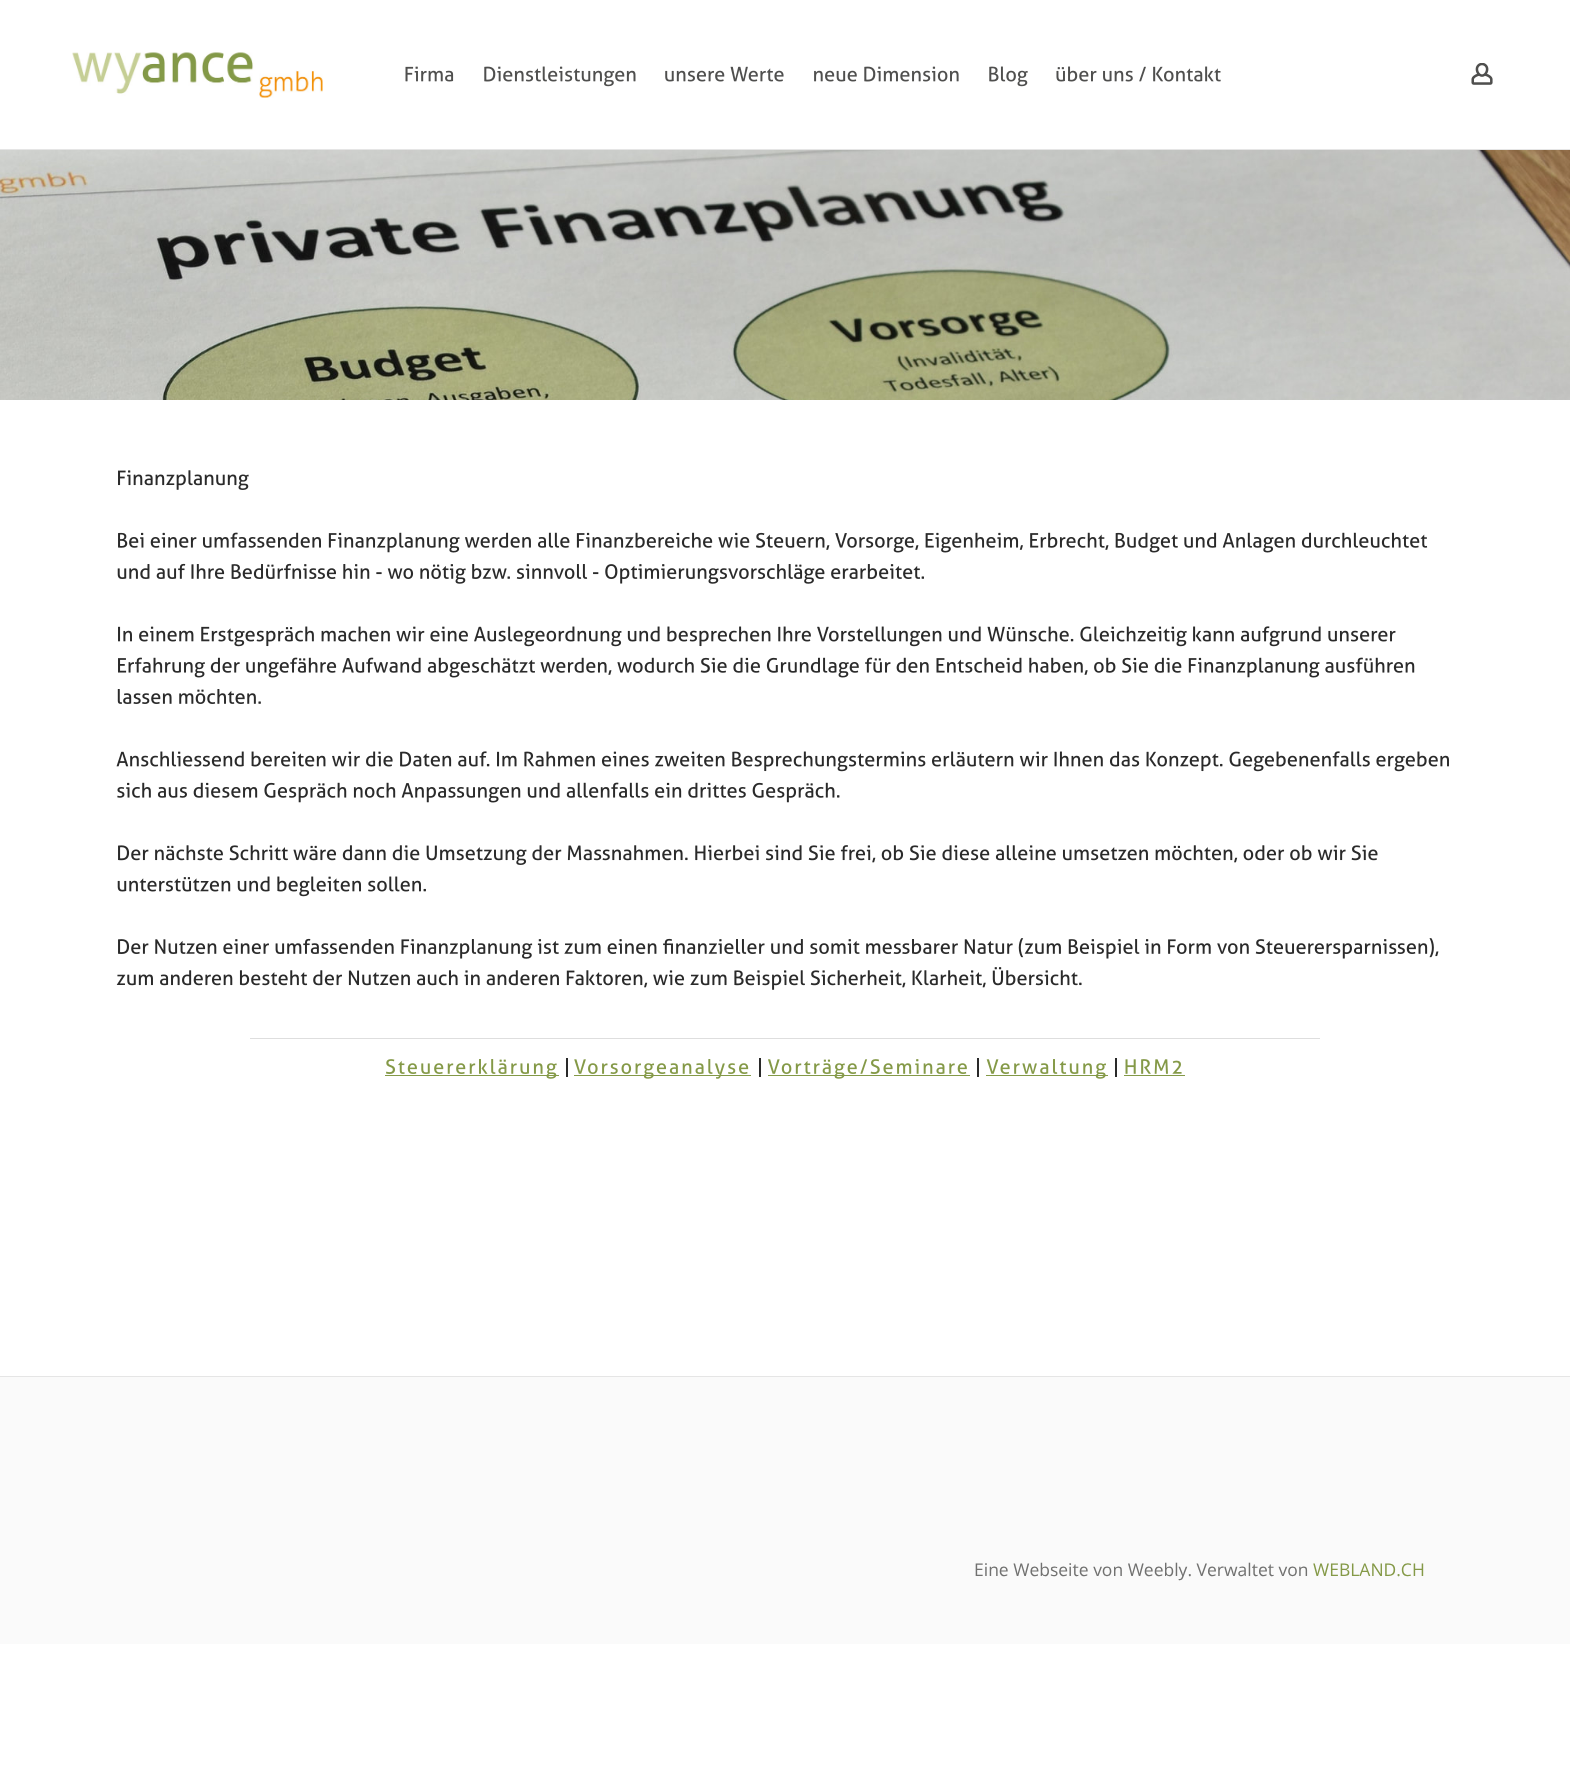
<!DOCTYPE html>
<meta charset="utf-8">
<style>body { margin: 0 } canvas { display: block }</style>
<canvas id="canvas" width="1570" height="1783"></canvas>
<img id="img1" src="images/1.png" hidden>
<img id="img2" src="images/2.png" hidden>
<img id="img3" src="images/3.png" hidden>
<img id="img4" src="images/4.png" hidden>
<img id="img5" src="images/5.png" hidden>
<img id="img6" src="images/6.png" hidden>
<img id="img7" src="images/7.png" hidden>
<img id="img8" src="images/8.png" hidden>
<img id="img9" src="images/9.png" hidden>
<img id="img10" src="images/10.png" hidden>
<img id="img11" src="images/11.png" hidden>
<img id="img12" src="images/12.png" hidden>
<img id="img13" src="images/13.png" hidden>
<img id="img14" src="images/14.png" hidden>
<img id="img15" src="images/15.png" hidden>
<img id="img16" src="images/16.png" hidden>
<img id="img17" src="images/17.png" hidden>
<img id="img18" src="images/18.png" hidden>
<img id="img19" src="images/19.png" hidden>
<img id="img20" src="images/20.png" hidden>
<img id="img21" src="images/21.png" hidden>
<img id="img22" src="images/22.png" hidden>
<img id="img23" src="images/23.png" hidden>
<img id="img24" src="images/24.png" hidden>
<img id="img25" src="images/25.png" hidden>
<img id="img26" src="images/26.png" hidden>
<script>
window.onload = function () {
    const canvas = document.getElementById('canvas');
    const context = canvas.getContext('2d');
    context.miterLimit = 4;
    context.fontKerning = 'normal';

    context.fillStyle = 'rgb(255, 255, 255)';
    context.fillRect(0, 0, 1570, 1783);
    context.drawImage(document.getElementById('img1'), 72, 52, 251, 46);
    context.drawImage(document.getElementById('img2'), 405, 66, 49, 16);
    context.drawImage(document.getElementById('img3'), 484, 66, 152, 21);
    context.drawImage(document.getElementById('img4'), 665, 66, 119, 16);
    context.drawImage(document.getElementById('img5'), 814, 66, 145, 16);
    context.drawImage(document.getElementById('img6'), 989, 66, 39, 21);
    context.drawImage(document.getElementById('img7'), 1056, 66, 165, 16);
    context.drawImage(document.getElementById('img8'), 1471, 63, 22, 22);
    context.fillStyle = 'rgb(229, 229, 229)';
    context.fillRect(0, 149, 1570, 1);
    context.drawImage(document.getElementById('img9'), 0, 150, 1570, 250);
    context.drawImage(document.getElementById('img10'), 118, 470, 131, 20);
    context.drawImage(document.getElementById('img11'), 118, 532, 1310, 21);
    context.drawImage(document.getElementById('img12'), 117, 563, 807, 21);
    context.drawImage(document.getElementById('img13'), 118, 626, 1278, 21);
    context.drawImage(document.getElementById('img14'), 118, 657, 1297, 21);
    context.drawImage(document.getElementById('img15'), 117, 689, 144, 15);
    context.drawImage(document.getElementById('img16'), 116, 751, 1333, 21);
    context.drawImage(document.getElementById('img17'), 117, 782, 723, 21);
    context.drawImage(document.getElementById('img18'), 118, 845, 1260, 20);
    context.drawImage(document.getElementById('img19'), 117, 876, 309, 21);
    context.drawImage(document.getElementById('img20'), 118, 938, 1321, 21);
    context.drawImage(document.getElementById('img21'), 116, 967, 966, 23);
    context.fillStyle = 'rgb(222, 222, 222)';
    context.fillRect(250, 1038, 1070, 1);
    context.fillStyle = 'rgb(132, 153, 71)';
    context.fillRect(385, 1075, 174, 1);
    context.drawImage(document.getElementById('img22'), 386, 1059, 171, 20);
    context.fillStyle = 'rgb(42, 42, 42)';
    context.fillRect(566, 1058, 2, 19);
    context.fillStyle = 'rgb(132, 153, 71)';
    context.fillRect(574, 1075, 177, 1);
    context.drawImage(document.getElementById('img23'), 574, 1059, 175, 20);
    context.fillStyle = 'rgb(42, 42, 42)';
    context.fillRect(759, 1058, 2, 19);
    context.fillStyle = 'rgb(132, 153, 71)';
    context.fillRect(768, 1075, 202, 1);
    context.drawImage(document.getElementById('img24'), 768, 1059, 199, 20);
    context.fillStyle = 'rgb(42, 42, 42)';
    context.fillRect(977, 1058, 2, 19);
    context.fillStyle = 'rgb(132, 153, 71)';
    context.fillRect(986, 1075, 122, 1);
    context.drawImage(document.getElementById('img25'), 986, 1059, 120, 20);
    context.fillStyle = 'rgb(42, 42, 42)';
    context.fillRect(1115, 1058, 2, 19);
    context.drawImage(document.getElementById('img26'), 1125, 1059, 57, 15);
    context.fillStyle = 'rgb(132, 153, 71)';
    context.fillRect(1124, 1075, 61, 1);
    context.fillStyle = 'rgb(250, 250, 250)';
    context.fillRect(0, 1377, 1570, 267);
    context.fillStyle = 'rgb(229, 229, 229)';
    context.fillRect(0, 1376, 1570, 1);
    context.font = '17.5px Open Sans';
    context.fillStyle = 'rgb(113, 113, 112)';
    context.fillText('Eine Webseite von Weebly. Verwaltet von', 974, 1576);
    context.fillStyle = 'rgb(132, 153, 71)';
    context.fillText('WEBLAND.CH', 1313, 1576);
};
</script>
